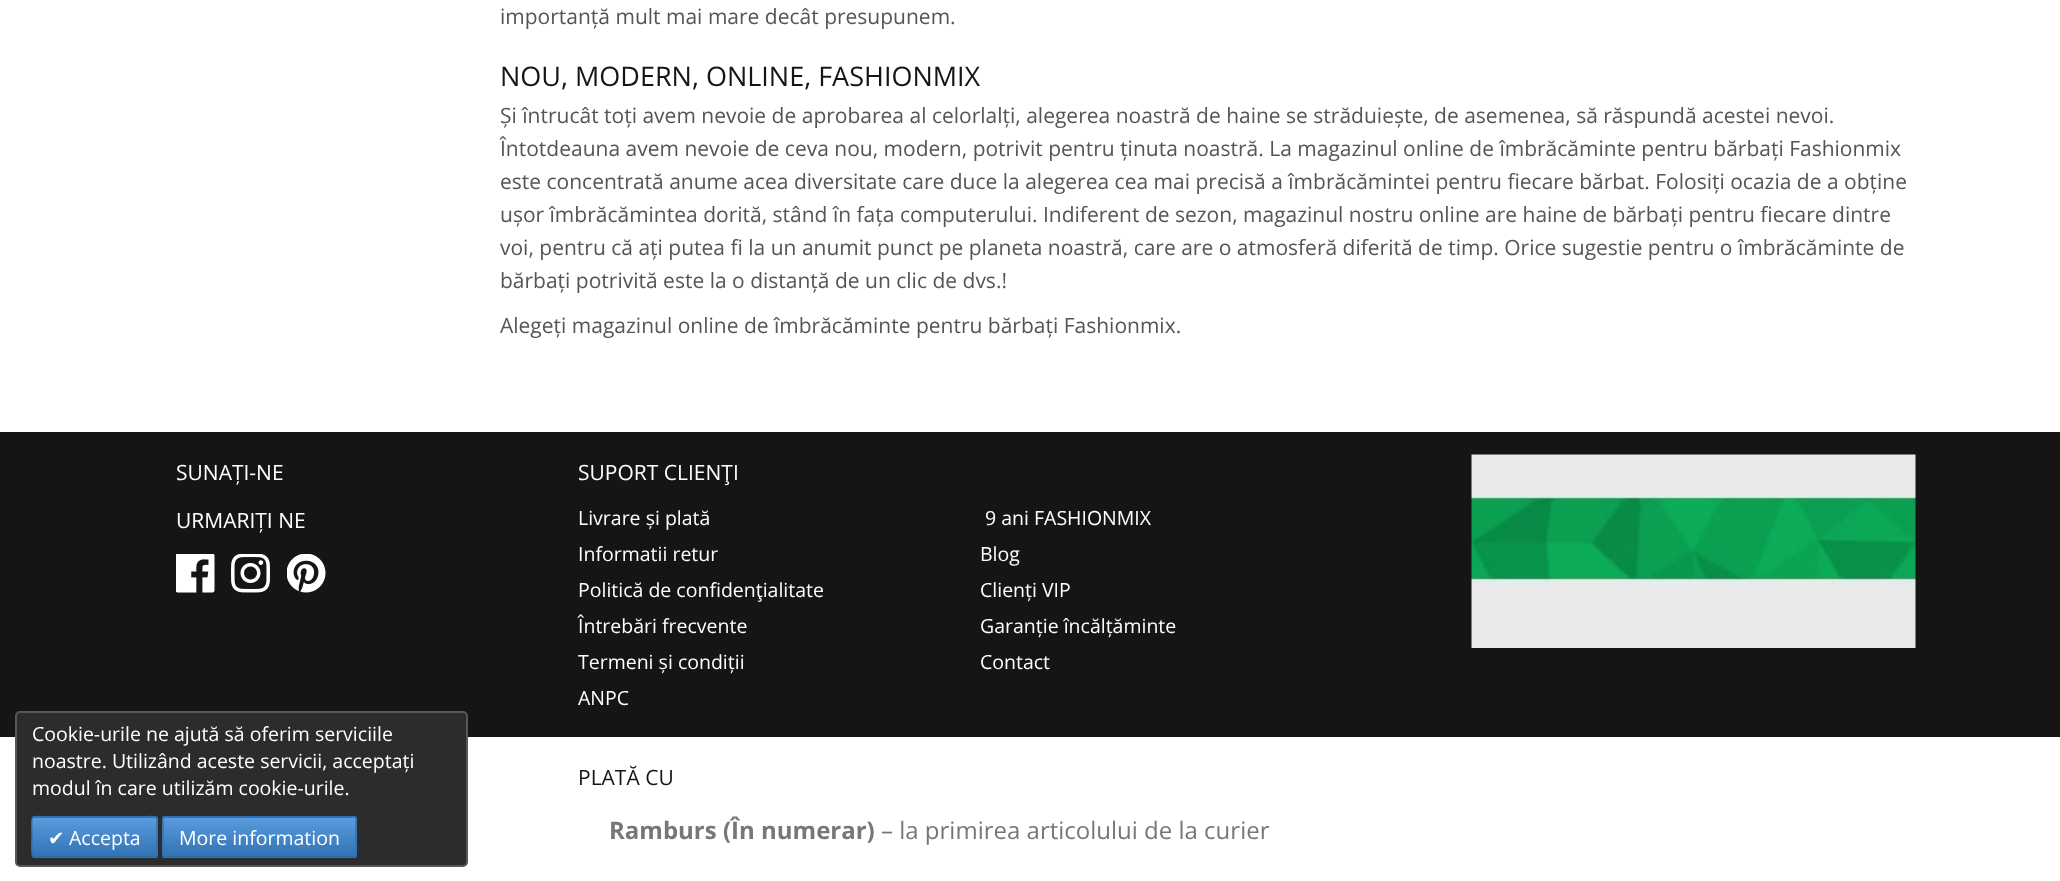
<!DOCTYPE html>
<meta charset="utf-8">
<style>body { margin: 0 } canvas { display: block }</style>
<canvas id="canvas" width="2060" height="881"></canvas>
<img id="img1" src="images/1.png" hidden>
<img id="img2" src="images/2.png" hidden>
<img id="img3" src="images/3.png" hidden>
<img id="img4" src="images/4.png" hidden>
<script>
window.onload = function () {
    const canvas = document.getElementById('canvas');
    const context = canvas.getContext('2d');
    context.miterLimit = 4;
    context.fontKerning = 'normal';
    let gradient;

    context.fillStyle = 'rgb(255, 255, 255)';
    context.fillRect(0, 0, 2060, 881);
    context.fillStyle = 'rgb(23, 20, 20)';
    context.fillRect(0, 432, 2060, 305);
    context.drawImage(document.getElementById('img1'), 176, 554, 39, 39);
    context.drawImage(document.getElementById('img2'), 231, 554, 39, 39);
    context.drawImage(document.getElementById('img3'), 287, 554, 39, 39);
    context.drawImage(document.getElementById('img4'), 1471, 454, 445, 194);
    context.fillStyle = 'rgb(44, 44, 44)';
    context.beginPath();
    context.roundRect(16, 712, 451, 154, 4);
    context.fill();
    context.strokeStyle = 'rgb(85, 87, 95)';
    context.lineWidth = 2;
    context.stroke();
    context.save();
    context.beginPath();
    context.roundRect(32, 816, 126, 42, 3);
    context.clip();
    gradient = context.createLinearGradient(95, 779, 95, 818);
    gradient.addColorStop(0, 'rgb(89, 155, 220)');
    gradient.addColorStop(1, 'rgb(48, 114, 179)');
    context.fillStyle = gradient;
    context.fillRect(32, 816, 126, 2);
    gradient = context.createLinearGradient(95, 818, 95, 857);
    gradient.addColorStop(0, 'rgb(89, 155, 220)');
    gradient.addColorStop(1, 'rgb(48, 114, 179)');
    context.fillStyle = gradient;
    context.fillRect(32, 818, 126, 39);
    gradient = context.createLinearGradient(95, 857, 95, 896);
    gradient.addColorStop(0, 'rgb(89, 155, 220)');
    gradient.addColorStop(1, 'rgb(48, 114, 179)');
    context.fillStyle = gradient;
    context.fillRect(32, 857, 126, 1);
    context.restore();
    context.beginPath();
    context.moveTo(156, 856.5);
    context.lineTo(154.5, 857);
    context.lineTo(34.5, 857);
    context.lineTo(33, 856.5);
    context.strokeStyle = 'rgb(42, 101, 160)';
    context.lineWidth = 1.5;
    context.stroke();
    context.beginPath();
    context.moveTo(33, 856.5);
    context.bezierCurveTo(31, 855, 32, 840, 32, 837);
    context.bezierCurveTo(32, 811.5, 27, 817, 54.5, 817);
    context.lineTo(134.5, 817);
    context.bezierCurveTo(162, 817, 157, 811.5, 157, 837);
    context.bezierCurveTo(157, 840, 158, 855, 156, 856.5);
    context.strokeStyle = 'rgb(48, 114, 179)';
    context.stroke();
    context.save();
    context.beginPath();
    context.roundRect(162, 816, 195, 42, 3);
    context.clip();
    gradient = context.createLinearGradient(260, 779, 260, 818);
    gradient.addColorStop(0, 'rgb(89, 155, 220)');
    gradient.addColorStop(1, 'rgb(48, 114, 179)');
    context.fillStyle = gradient;
    context.fillRect(162, 816, 195, 2);
    gradient = context.createLinearGradient(260, 818, 260, 857);
    gradient.addColorStop(0, 'rgb(89, 155, 220)');
    gradient.addColorStop(1, 'rgb(48, 114, 179)');
    context.fillStyle = gradient;
    context.fillRect(162, 818, 195, 39);
    gradient = context.createLinearGradient(260, 857, 260, 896);
    gradient.addColorStop(0, 'rgb(89, 155, 220)');
    gradient.addColorStop(1, 'rgb(48, 114, 179)');
    context.fillStyle = gradient;
    context.fillRect(162, 857, 195, 1);
    context.restore();
    context.beginPath();
    context.moveTo(355.5, 856.5);
    context.lineTo(355, 857);
    context.lineTo(196.5, 857);
    context.lineTo(165, 857);
    context.lineTo(163.5, 856.5);
    context.strokeStyle = 'rgb(42, 101, 160)';
    context.stroke();
    context.beginPath();
    context.moveTo(163.5, 856.5);
    context.bezierCurveTo(161.5, 855, 163, 840, 163, 837);
    context.lineTo(163, 825);
    context.bezierCurveTo(163, 824, 161.5, 817, 165, 817);
    context.lineTo(354, 817);
    context.bezierCurveTo(357.5, 817, 356, 824, 356, 825);
    context.lineTo(356, 837);
    context.bezierCurveTo(356, 840, 357.5, 855, 355.5, 856.5);
    context.strokeStyle = 'rgb(48, 114, 179)';
    context.stroke();
    context.font = '21px Open Sans';
    context.fillStyle = 'rgb(85, 85, 85)';
    context.fillText('importanță mult mai mare decât presupunem.', 500, 24);
    context.font = '27px Open Sans';
    context.fillStyle = 'rgb(23, 20, 20)';
    context.fillText('NOU, MODERN, ONLINE, FASHIONMIX', 500, 86);
    context.font = '21px Open Sans';
    context.fillStyle = 'rgb(85, 85, 85)';
    context.fillText('Și întrucât toți avem nevoie de aprobarea al celorlalți, alegerea noastră de haine se străduiește, de asemenea, să răspundă acestei nevoi.', 500, 123);
    context.fillText('Întotdeauna avem nevoie de ceva nou, modern, potrivit pentru ținuta noastră. La magazinul online de îmbrăcăminte pentru bărbați Fashionmix', 500, 156);
    context.fillText('este concentrată anume acea diversitate care duce la alegerea cea mai precisă a îmbrăcămintei pentru fiecare bărbat. Folosiți ocazia de a obține', 500, 189);
    context.fillText('ușor îmbrăcămintea dorită, stând în fața computerului. Indiferent de sezon, magazinul nostru online are haine de bărbați pentru fiecare dintre', 500, 222);
    context.fillText('voi, pentru că ați putea fi la un anumit punct pe planeta noastră, care are o atmosferă diferită de timp. Orice sugestie pentru o îmbrăcăminte de', 500, 255);
    context.fillText('bărbați potrivită este la o distanță de un clic de dvs.!', 500, 288);
    context.fillText('Alegeți magazinul online de îmbrăcăminte pentru bărbați Fashionmix.', 500, 333);
    context.fillStyle = 'rgb(255, 255, 255)';
    context.fillText('SUNAȚI-NE', 176, 480);
    context.fillText('URMARIȚI NE', 176, 528);
    context.fillText('SUPORT CLIENŢI', 578, 480);
    context.font = '19.5px Open Sans';
    context.fillText('Livrare și plată', 578, 525);
    context.fillText('Informatii retur', 578, 561);
    context.fillText('Politică de confidenţialitate', 578, 597);
    context.fillText('Întrebări frecvente', 578, 633);
    context.fillText('Termeni și condiții', 578, 669);
    context.fillText('ANPC', 578, 705);
    context.fillText('9 ani FASHIONMIX', 985, 525);
    context.fillText('Blog', 980, 561);
    context.fillText('Clienți VIP', 980, 597);
    context.fillText('Garanție încălțăminte', 980, 633);
    context.fillText('Contact', 980, 669);
    context.font = '21px Open Sans';
    context.fillStyle = 'rgb(23, 20, 20)';
    context.fillText('PLATĂ CU', 578, 785);
    context.font = 'bold 24px Open Sans';
    context.fillStyle = 'rgb(119, 119, 119)';
    context.fillText('Ramburs (În numerar)', 609, 839);
    context.font = '24px Open Sans';
    context.fillText('– la primirea articolului de la curier', 881, 839);
    context.font = '19.5px Open Sans';
    context.fillStyle = 'rgb(255, 255, 255)';
    context.fillText('Cookie-urile ne ajută să oferim serviciile', 32, 741);
    context.fillText('noastre. Utilizând aceste servicii, acceptați', 32, 768);
    context.fillText('modul în care utilizăm cookie-urile.', 32, 795);
    context.font = '19.5px DejaVu Sans';
    context.fillText('✔', 48, 845);
    context.font = '19.5px Open Sans';
    context.fillText('Accepta', 69, 845);
    context.fillText('More information', 179, 845);
};
</script>
